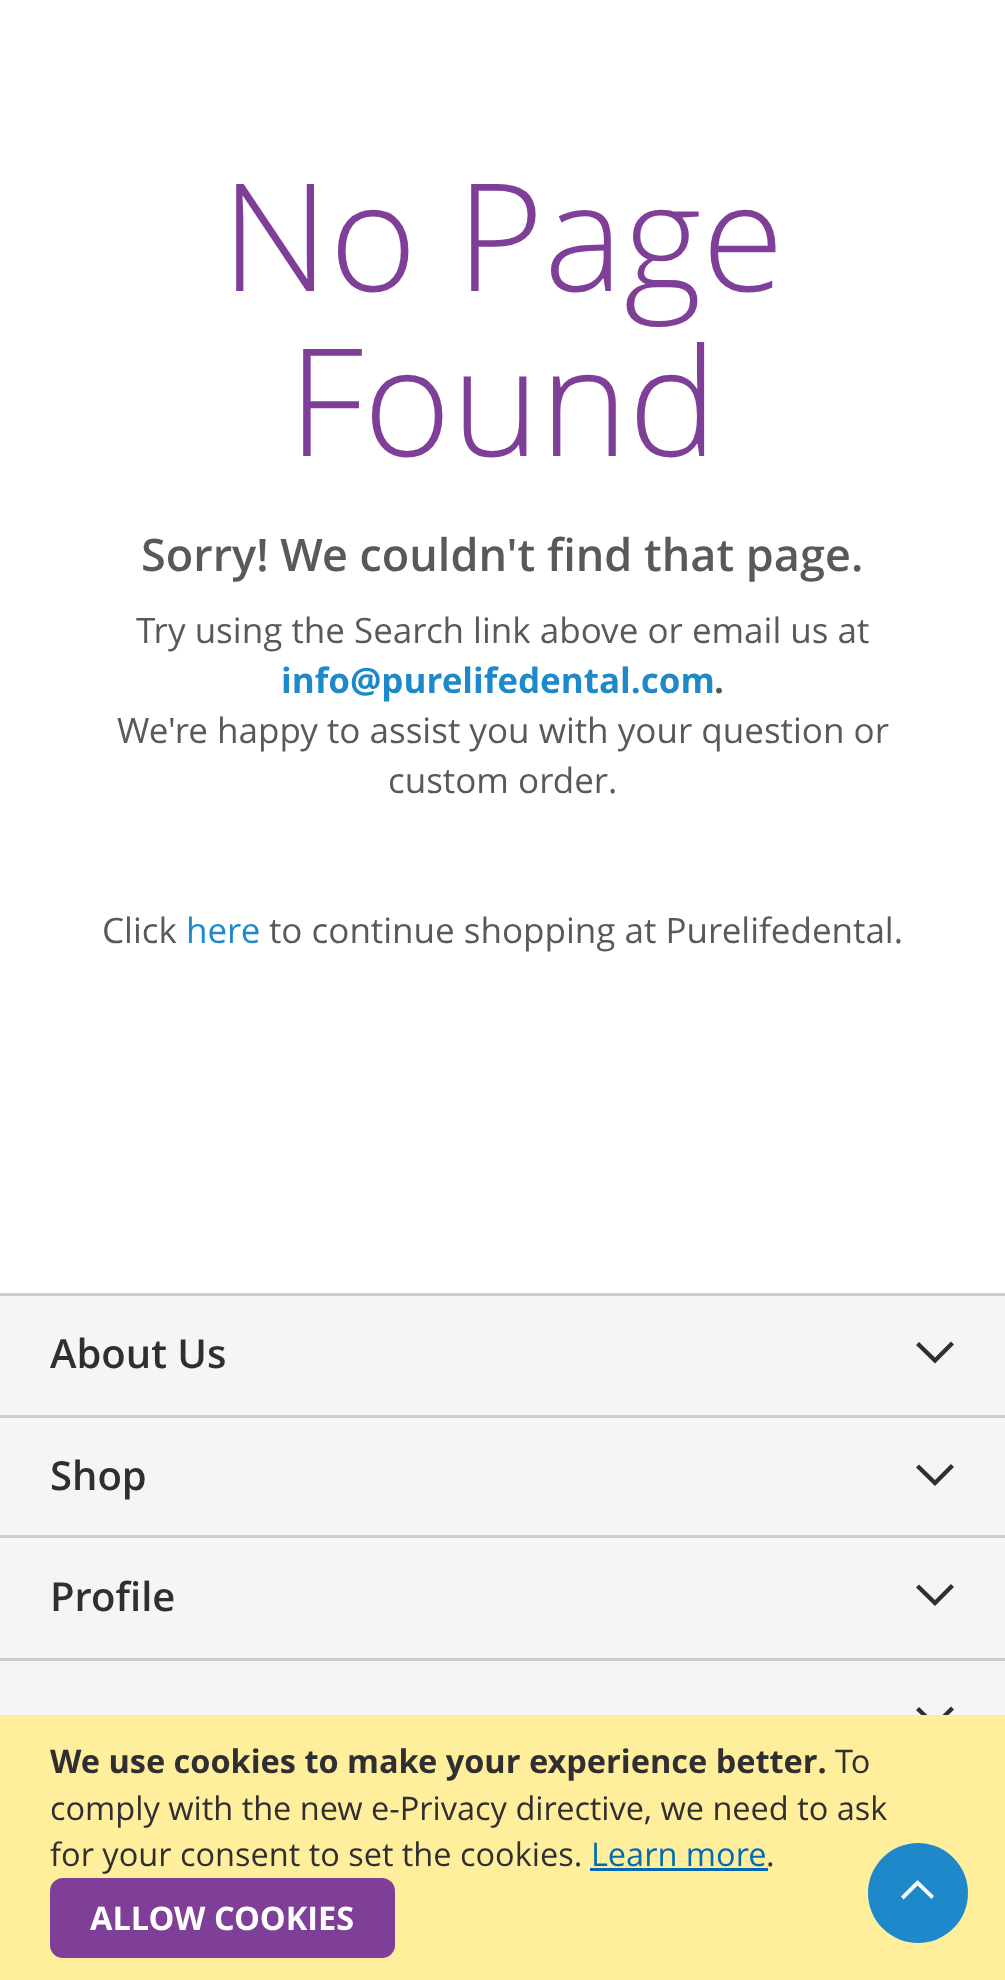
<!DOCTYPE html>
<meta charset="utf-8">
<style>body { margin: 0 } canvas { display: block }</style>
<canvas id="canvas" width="1005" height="1980"></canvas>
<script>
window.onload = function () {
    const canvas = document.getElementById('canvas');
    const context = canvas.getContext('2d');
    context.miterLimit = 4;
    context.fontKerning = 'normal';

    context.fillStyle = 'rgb(255, 255, 255)';
    context.fillRect(0, 0, 1005, 1980);
    context.fillStyle = 'rgb(245, 245, 245)';
    context.fillRect(0, 1296, 1005, 419);
    context.fillStyle = 'rgb(206, 206, 206)';
    context.fillRect(0, 1293, 1005, 3);
    context.fillStyle = 'rgb(204, 204, 204)';
    context.fillRect(0, 1415, 1005, 3);
    context.fillStyle = 'rgb(49, 46, 50)';
    context.beginPath();
    context.moveTo(935, 1357.5);
    context.lineTo(919, 1342);
    context.lineTo(916, 1345);
    context.lineTo(935, 1363.5);
    context.lineTo(954, 1344.5);
    context.lineTo(951, 1341.5);
    context.closePath();
    context.fill();
    context.fillStyle = 'rgb(204, 204, 204)';
    context.fillRect(0, 1535, 1005, 3);
    context.fillStyle = 'rgb(49, 46, 50)';
    context.beginPath();
    context.moveTo(935, 1480);
    context.lineTo(919, 1464.5);
    context.lineTo(916, 1467.5);
    context.lineTo(935, 1486);
    context.lineTo(954, 1467);
    context.lineTo(951, 1464);
    context.closePath();
    context.fill();
    context.fillStyle = 'rgb(204, 204, 204)';
    context.fillRect(0, 1658, 1005, 3);
    context.fillStyle = 'rgb(49, 46, 50)';
    context.beginPath();
    context.moveTo(935, 1600);
    context.lineTo(919, 1584.5);
    context.lineTo(916, 1587.5);
    context.lineTo(935, 1606);
    context.lineTo(954, 1587);
    context.lineTo(951, 1584);
    context.closePath();
    context.fill();
    context.beginPath();
    context.moveTo(935, 1722.5);
    context.lineTo(919, 1707);
    context.lineTo(916, 1710);
    context.lineTo(935, 1728.5);
    context.lineTo(954, 1709.5);
    context.lineTo(951, 1706.5);
    context.closePath();
    context.fill();
    context.fillStyle = 'rgb(255, 238, 156)';
    context.fillRect(0, 1715, 1005, 265);
    context.fillStyle = 'rgb(0, 107, 180)';
    context.fillRect(590, 1868, 178, 3);
    context.fillStyle = 'rgb(127, 63, 152)';
    context.beginPath();
    context.roundRect(51.5, 1879.5, 342, 77, 11.5);
    context.fill();
    context.strokeStyle = 'rgb(127, 63, 152)';
    context.lineWidth = 3;
    context.stroke();
    context.fillStyle = 'rgb(30, 137, 202)';
    context.beginPath();
    context.arc(918, 1893, 50, 0, 2 * Math.PI);
    context.fill();
    context.fillStyle = 'rgb(255, 255, 255)';
    context.beginPath();
    context.moveTo(917.5, 1885.5);
    context.lineTo(931.5, 1899);
    context.lineTo(934, 1896);
    context.lineTo(917.5, 1880);
    context.lineTo(901, 1896.5);
    context.lineTo(903.5, 1899.5);
    context.closePath();
    context.fill();
    context.font = '300 150px Open Sans';
    context.fillStyle = 'rgb(127, 63, 152)';
    context.fillText('No Page', 221, 291);
    context.fillText('Found', 288, 456);
    context.font = '600 45px Open Sans';
    context.fillStyle = 'rgb(88, 89, 91)';
    context.fillText('Sorry! We couldn\'t find that page.', 141, 571);
    context.font = '35px Open Sans';
    context.fillText('Try using the Search link above or email us at', 136, 643);
    context.font = 'bold 35px Open Sans';
    context.fillStyle = 'rgb(30, 137, 202)';
    context.fillText('info@purelifedental.com', 281, 693);
    context.fillStyle = 'rgb(88, 89, 91)';
    context.fillText('.', 714, 693);
    context.font = '35px Open Sans';
    context.fillText('We\'re happy to assist you with your question or', 117, 743);
    context.fillText('custom order.', 388, 793);
    context.fillText('Click', 102, 943);
    context.fillStyle = 'rgb(30, 137, 202)';
    context.fillText('here', 186, 943);
    context.fillStyle = 'rgb(88, 89, 91)';
    context.fillText('to continue shopping at Purelifedental.', 269, 943);
    context.font = '600 40px Open Sans';
    context.fillStyle = 'rgb(49, 46, 50)';
    context.fillText('About Us', 50, 1368);
    context.fillText('Shop', 50, 1490);
    context.fillText('Profile', 50, 1611);
    context.font = 'bold 32.5px Open Sans';
    context.fillText('We use cookies to make your experience better.', 50, 1773);
    context.font = '32.5px Open Sans';
    context.fillText('To', 835, 1773);
    context.fillText('comply with the new e-Privacy directive, we need to ask', 50, 1820);
    context.fillText('for your consent to set the cookies.', 50, 1866);
    context.fillStyle = 'rgb(0, 107, 180)';
    context.fillText('Learn more', 591, 1866);
    context.fillStyle = 'rgb(49, 46, 50)';
    context.fillText('.', 766, 1866);
    context.font = 'bold 32.5px Open Sans';
    context.fillStyle = 'rgb(255, 255, 255)';
    context.fillText('ALLOW COOKIES', 90, 1930);
};
</script>
